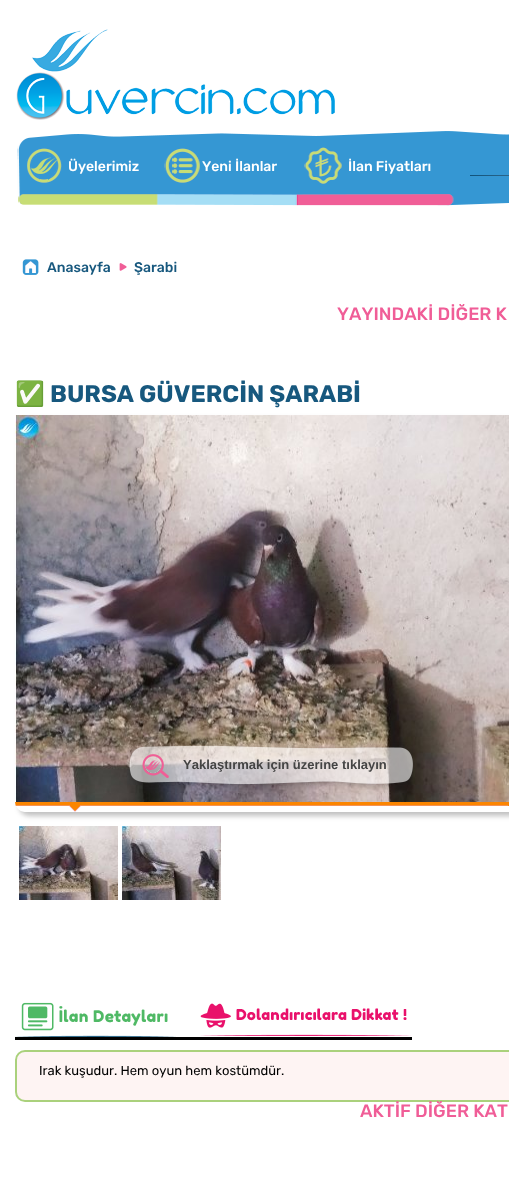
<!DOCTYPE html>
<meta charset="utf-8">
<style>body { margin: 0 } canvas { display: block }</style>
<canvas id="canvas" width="509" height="1185"></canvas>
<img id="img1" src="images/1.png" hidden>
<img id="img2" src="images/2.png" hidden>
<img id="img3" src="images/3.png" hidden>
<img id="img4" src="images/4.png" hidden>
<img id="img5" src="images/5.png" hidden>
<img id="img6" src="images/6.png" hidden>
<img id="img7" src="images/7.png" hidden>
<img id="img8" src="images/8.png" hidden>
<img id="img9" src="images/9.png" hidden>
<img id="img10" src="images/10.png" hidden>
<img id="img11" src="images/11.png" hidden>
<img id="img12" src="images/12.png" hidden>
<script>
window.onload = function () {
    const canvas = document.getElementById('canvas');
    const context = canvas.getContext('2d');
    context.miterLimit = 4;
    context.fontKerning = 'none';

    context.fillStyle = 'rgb(255, 255, 255)';
    context.fillRect(0, 0, 509, 1185);
    context.drawImage(document.getElementById('img1'), 16, 29, 319, 91);
    context.drawImage(document.getElementById('img2'), 17, 131, 492, 75);
    context.drawImage(document.getElementById('img3'), 470, 175, 39, 1);
    context.drawImage(document.getElementById('img4'), 22, 259, 17, 16);
    context.drawImage(document.getElementById('img5'), 119, 263, 8, 8);
    context.fillStyle = 'rgba(50, 50, 50, 0.3)';
    context.filter = 'blur(2.5px)';
    context.beginPath();
    context.roundRect(19, 419, 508, 397, 10);
    context.fill();
    context.filter = 'none';
    context.fillStyle = 'rgb(238, 238, 238)';
    context.beginPath();
    context.roundRect(15, 415, 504, 397, 10);
    context.fill();
    context.drawImage(document.getElementById('img6'), 15, 802, 494, 10);
    context.drawImage(document.getElementById('img7'), 15, 415, 494, 387);
    context.drawImage(document.getElementById('img8'), 126, 742, 287, 48);
    context.drawImage(document.getElementById('img9'), 19, 826, 99, 74);
    context.drawImage(document.getElementById('img10'), 122, 826, 99, 74);
    context.fillStyle = 'rgb(0, 0, 0)';
    context.fillRect(15, 1037, 397, 3);
    context.drawImage(document.getElementById('img11'), 15, 1002, 161, 35);
    context.drawImage(document.getElementById('img12'), 200, 1003, 212, 33);
    context.fillStyle = 'rgb(254, 244, 243)';
    context.beginPath();
    context.roundRect(16, 1051, 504, 50, 9);
    context.fill();
    context.strokeStyle = 'rgb(170, 209, 124)';
    context.lineWidth = 2;
    context.stroke();
    context.font = '500 14px Rubik';
    context.fillStyle = 'rgb(255, 255, 255)';
    context.fillText('Üyelerimiz', 68, 171);
    context.fillText('Yeni İlanlar', 202, 171);
    context.fillText('İlan Fiyatları', 348, 171);
    context.fillStyle = 'rgb(23, 88, 126)';
    context.fillText('Anasayfa', 47, 272);
    context.fillText('Şarabi', 134, 272);
    context.font = '500 18px Rubik';
    context.fillStyle = 'rgb(240, 93, 151)';
    context.fillText('YAYINDAKİ DİĞER K', 337, 320);
    context.font = 'bold 24px Noto Color Emoji';
    context.fillStyle = 'rgb(23, 88, 126)';
    context.fillText('✅', 15, 402);
    context.font = 'bold 24px Rubik';
    context.fillText('BURSA GÜVERCİN ŞARABİ', 50, 402);
    context.font = 'bold 13px Liberation Sans';
    context.fillStyle = 'rgb(68, 68, 68)';
    context.fillText('Yaklaştırmak için üzerine tıklayın', 183, 769);
    context.font = '13px Rubik';
    context.fillStyle = 'rgb(0, 0, 0)';
    context.fillText('Irak kuşudur. Hem oyun hem kostümdür.', 39, 1075);
    context.font = '500 18px Rubik';
    context.fillStyle = 'rgb(240, 93, 151)';
    context.fillText('AKTİF DİĞER KAT', 360, 1117);
};
</script>
